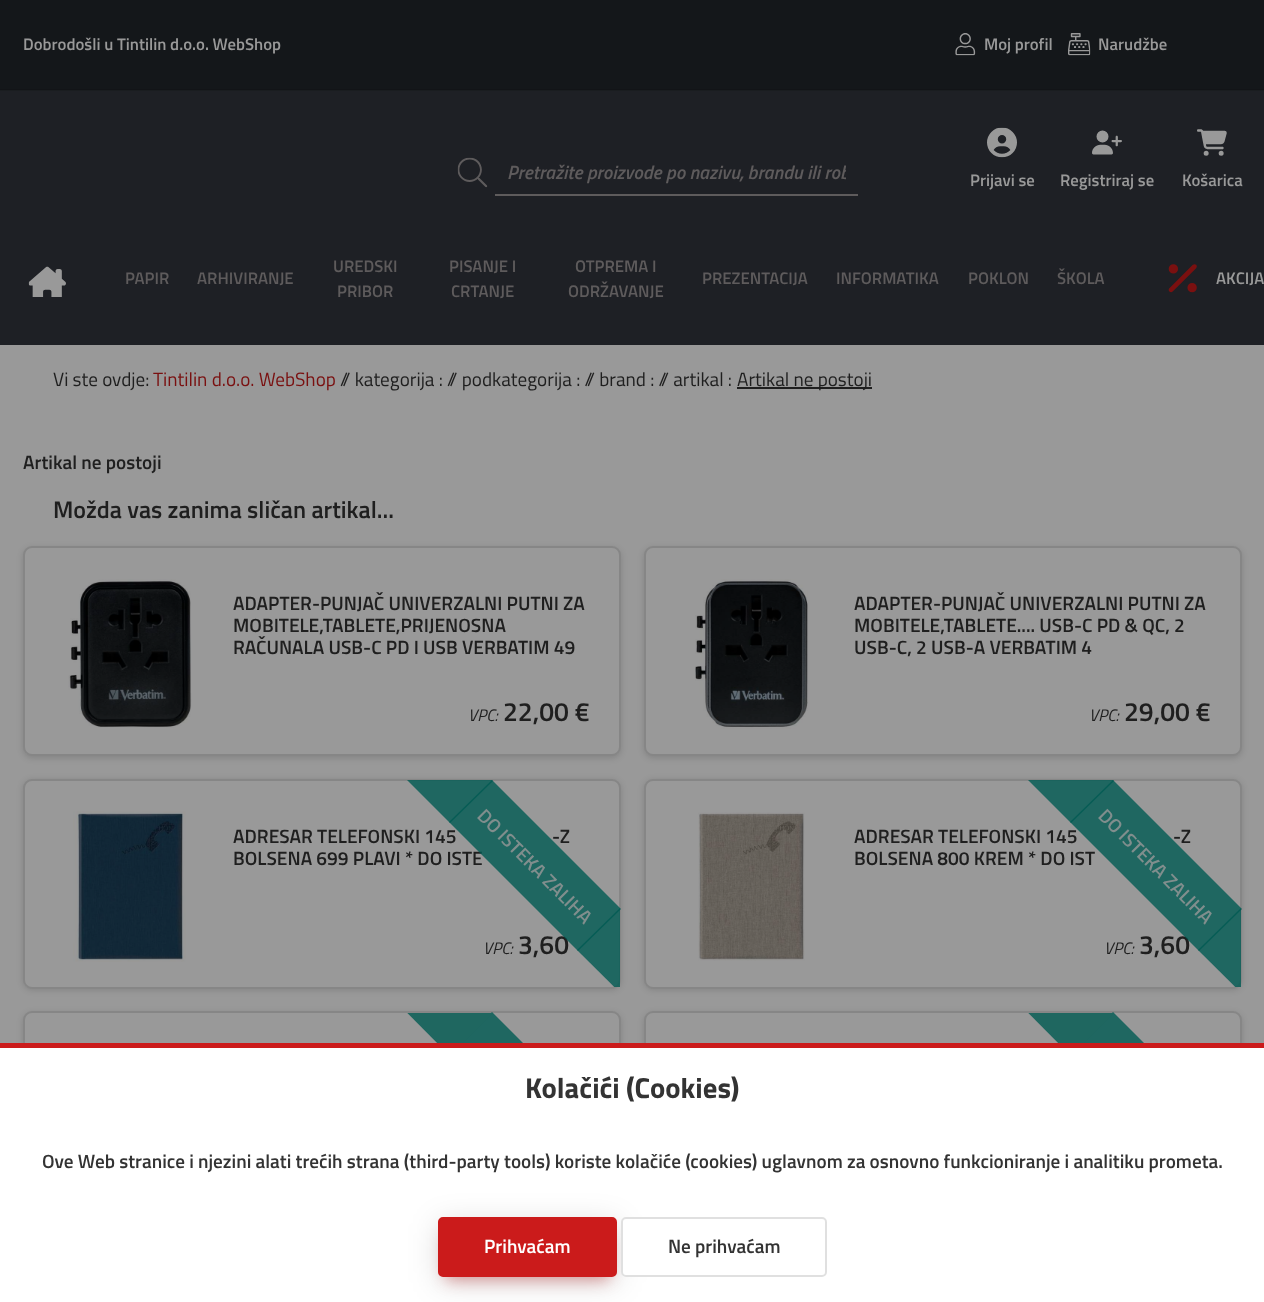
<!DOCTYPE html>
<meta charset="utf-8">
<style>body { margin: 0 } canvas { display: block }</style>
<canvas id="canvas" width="1264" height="1302"></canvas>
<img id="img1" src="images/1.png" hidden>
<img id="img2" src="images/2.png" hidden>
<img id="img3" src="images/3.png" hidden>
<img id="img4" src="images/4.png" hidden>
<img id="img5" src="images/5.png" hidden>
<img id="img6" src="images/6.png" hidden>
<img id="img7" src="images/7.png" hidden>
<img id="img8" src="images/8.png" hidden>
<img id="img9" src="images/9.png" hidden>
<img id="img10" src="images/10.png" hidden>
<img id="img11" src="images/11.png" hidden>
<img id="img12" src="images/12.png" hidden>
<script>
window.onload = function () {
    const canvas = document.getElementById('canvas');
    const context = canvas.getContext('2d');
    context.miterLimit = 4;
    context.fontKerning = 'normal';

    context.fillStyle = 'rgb(153, 153, 153)';
    context.fillRect(0, 0, 1264, 1302);
    context.fillStyle = 'rgb(30, 32, 37)';
    context.fillRect(0, 91, 1264, 254);
    context.fillStyle = 'rgb(26, 29, 32)';
    context.fillRect(0, 90, 1264, 1);
    context.fillStyle = 'rgb(20, 23, 26)';
    context.fillRect(0, 0, 1264, 89);
    context.fillStyle = 'rgb(18, 20, 23)';
    context.fillRect(0, 89, 1264, 1);
    context.drawImage(document.getElementById('img1'), 955, 33, 21, 23);
    context.drawImage(document.getElementById('img2'), 1068, 33, 23, 23);
    context.drawImage(document.getElementById('img3'), 457, 157, 31, 31);
    context.fillStyle = 'rgb(94, 91, 92)';
    context.fillRect(495, 194, 363, 2);
    context.drawImage(document.getElementById('img4'), 987, 127, 30, 31);
    context.drawImage(document.getElementById('img5'), 1092, 130, 30, 25);
    context.drawImage(document.getElementById('img6'), 1197, 129, 30, 27);
    context.drawImage(document.getElementById('img7'), 28, 266, 38, 31);
    context.drawImage(document.getElementById('img8'), 1168, 264, 29, 29);
    context.fillStyle = 'rgb(31, 31, 31)';
    context.fillRect(737, 387, 135, 2);
    context.fillStyle = 'rgba(0, 0, 0, 0.14)';
    context.filter = 'blur(3px)';
    context.beginPath();
    context.roundRect(23, 548, 598, 210, 9);
    context.fill();
    context.filter = 'none';
    context.fillStyle = 'rgb(153, 153, 153)';
    context.beginPath();
    context.roundRect(23, 546, 598, 210, 9);
    context.fill();
    context.beginPath();
    context.roundRect(24, 547, 596, 208, 8);
    context.strokeStyle = 'rgba(0, 0, 0, 0.12)';
    context.lineWidth = 2;
    context.stroke();
    context.drawImage(document.getElementById('img9'), 68, 579, 124, 149);
    context.fillStyle = 'rgba(0, 0, 0, 0.14)';
    context.filter = 'blur(3px)';
    context.beginPath();
    context.roundRect(644, 548, 598, 210, 9);
    context.fill();
    context.filter = 'none';
    context.fillStyle = 'rgb(153, 153, 153)';
    context.beginPath();
    context.roundRect(644, 546, 598, 210, 9);
    context.fill();
    context.beginPath();
    context.roundRect(645, 547, 596, 208, 8);
    context.stroke();
    context.drawImage(document.getElementById('img10'), 695, 579, 113, 150);
    context.fillStyle = 'rgba(0, 0, 0, 0.14)';
    context.filter = 'blur(3px)';
    context.beginPath();
    context.roundRect(23, 780, 598, 210, 9);
    context.fill();
    context.filter = 'none';
    context.fillStyle = 'rgb(153, 153, 153)';
    context.beginPath();
    context.roundRect(23, 779, 598, 210, 9);
    context.fill();
    context.beginPath();
    context.roundRect(24, 780, 596, 208, 8);
    context.stroke();
    context.drawImage(document.getElementById('img11'), 73, 811, 113, 151);
    context.fillStyle = 'rgba(0, 0, 0, 0.14)';
    context.filter = 'blur(3px)';
    context.beginPath();
    context.roundRect(644, 780, 598, 210, 9);
    context.fill();
    context.filter = 'none';
    context.fillStyle = 'rgb(153, 153, 153)';
    context.beginPath();
    context.roundRect(644, 779, 598, 210, 9);
    context.fill();
    context.beginPath();
    context.roundRect(645, 780, 596, 208, 8);
    context.stroke();
    context.drawImage(document.getElementById('img12'), 698, 812, 107, 149);
    context.fillStyle = 'rgba(0, 0, 0, 0.14)';
    context.filter = 'blur(3px)';
    context.beginPath();
    context.roundRect(23, 1013, 598, 210, 9);
    context.fill();
    context.filter = 'none';
    context.fillStyle = 'rgb(153, 153, 153)';
    context.beginPath();
    context.roundRect(23, 1011, 598, 210, 9);
    context.fill();
    context.beginPath();
    context.roundRect(24, 1012, 596, 208, 8);
    context.stroke();
    context.fillStyle = 'rgba(0, 90, 82, 0.8)';
    context.beginPath();
    context.moveTo(492, 1012);
    context.lineTo(621, 1141);
    context.lineTo(578, 1184);
    context.lineTo(449, 1054);
    context.closePath();
    context.fill();
    context.save();
    context.beginPath();
    context.rect(24, 1013, 596, 207);
    context.clip();
    context.fillStyle = 'rgb(31, 103, 96)';
    context.beginPath();
    context.moveTo(363, 884);
    context.lineTo(493, 1013);
    context.lineTo(450, 1056);
    context.lineTo(321, 926);
    context.closePath();
    context.fill();
    context.restore();
    context.fillStyle = 'rgba(0, 0, 0, 0.14)';
    context.filter = 'blur(3px)';
    context.beginPath();
    context.roundRect(644, 1013, 598, 210, 9);
    context.fill();
    context.filter = 'none';
    context.fillStyle = 'rgb(153, 153, 153)';
    context.beginPath();
    context.roundRect(644, 1011, 598, 210, 9);
    context.fill();
    context.beginPath();
    context.roundRect(645, 1012, 596, 208, 8);
    context.stroke();
    context.fillStyle = 'rgba(0, 90, 82, 0.8)';
    context.beginPath();
    context.moveTo(1113, 1012);
    context.lineTo(1242, 1141);
    context.lineTo(1199, 1184);
    context.lineTo(1070, 1054);
    context.closePath();
    context.fill();
    context.save();
    context.beginPath();
    context.rect(645, 1013, 596, 207);
    context.clip();
    context.fillStyle = 'rgb(31, 103, 96)';
    context.beginPath();
    context.moveTo(984, 884);
    context.lineTo(1114, 1013);
    context.lineTo(1071, 1056);
    context.lineTo(942, 926);
    context.closePath();
    context.fill();
    context.restore();
    context.fillStyle = 'rgb(255, 255, 255)';
    context.fillRect(0, 1048, 1264, 254);
    context.fillStyle = 'rgb(203, 27, 27)';
    context.fillRect(0, 1043, 1264, 5);
    context.fillStyle = 'rgba(203, 27, 27, 0.4)';
    context.filter = 'blur(7.5px)';
    context.beginPath();
    context.rect(446, 1235, 163, 45);
    context.fill();
    context.filter = 'none';
    context.fillStyle = 'rgba(0, 0, 0, 0.14)';
    context.filter = 'blur(15px)';
    context.beginPath();
    context.roundRect(438, 1223, 179, 60, 5);
    context.fill();
    context.filter = 'none';
    context.fillStyle = 'rgb(203, 27, 27)';
    context.beginPath();
    context.roundRect(439, 1218, 177, 58, 4);
    context.fill();
    context.strokeStyle = 'rgb(203, 27, 27)';
    context.stroke();
    context.fillStyle = 'rgb(255, 255, 255)';
    context.beginPath();
    context.roundRect(621, 1217, 206, 60, 5);
    context.fill();
    context.beginPath();
    context.roundRect(622, 1218, 204, 58, 4);
    context.strokeStyle = 'rgba(0, 0, 0, 0.12)';
    context.stroke();
    context.font = '600 16.75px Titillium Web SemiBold';
    context.fillStyle = 'rgb(153, 153, 153)';
    context.fillText('Dobrodošli u Tintilin d.o.o. WebShop', 23, 50);
    context.fillText('Moj profil', 984, 50);
    context.fillText('Narudžbe', 1098, 50);
    context.save();
    context.beginPath();
    context.rect(507, 158, 339, 30);
    context.clip();
    context.font = 'italic 600 19.2px Titillium Web SemiBold';
    context.fillStyle = 'rgb(94, 91, 92)';
    context.fillText('Pretražite proizvode po nazivu, brandu ili rob', 507, 179);
    context.restore();
    context.fillText('Prijavi se', 970, 186);
    context.fillText('Registriraj se', 1060, 186);
    context.fillText('Košarica', 1182, 186);
    context.fillStyle = 'rgb(94, 91, 92)';
    context.fillText('PAPIR', 125, 284);
    context.fillText('ARHIVIRANJE', 197, 284);
    context.fillText('UREDSKI', 333, 272);
    context.fillText('PRIBOR', 337, 297);
    context.fillText('PISANJE I', 449, 272);
    context.fillText('CRTANJE', 451, 297);
    context.fillText('OTPREMA I', 575, 272);
    context.fillText('ODRŽAVANJE', 568, 297);
    context.fillText('PREZENTACIJA', 702, 284);
    context.fillText('INFORMATIKA', 836, 284);
    context.fillText('POKLON', 968, 284);
    context.fillText('ŠKOLA', 1057, 284);
    context.fillStyle = 'rgb(153, 153, 153)';
    context.fillText('AKCIJA', 1216, 284);
    context.font = '19.2px Titillium Web';
    context.fillStyle = 'rgb(31, 31, 31)';
    context.fillText('Vi ste ovdje:', 53, 386);
    context.fillStyle = 'rgb(122, 16, 16)';
    context.fillText('Tintilin d.o.o. WebShop', 153, 386);
    context.fillStyle = 'rgb(31, 31, 31)';
    context.fillText('// kategorija : // podkategorija : // brand : // artikal :', 340, 386);
    context.fillText('Artikal ne postoji', 737, 386);
    context.font = '600 19.2px Titillium Web SemiBold';
    context.fillText('Artikal ne postoji', 23, 469);
    context.font = '600 24px Titillium Web SemiBold';
    context.fillText('Možda vas zanima sličan artikal...', 53, 518);
    context.font = '600 19.2px Titillium Web SemiBold';
    context.fillText('ADAPTER-PUNJAČ UNIVERZALNI PUTNI ZA', 233, 610);
    context.fillText('MOBITELE,TABLETE,PRIJENOSNA', 233, 632);
    context.fillText('RAČUNALA USB-C PD I USB VERBATIM 49', 233, 654);
    context.font = 'italic 16.75px Titillium Web';
    context.fillText('VPC:', 468, 721);
    context.font = '600 26.5px Titillium Web SemiBold';
    context.fillText('22,00 €', 503, 721);
    context.font = '600 19.2px Titillium Web SemiBold';
    context.fillText('ADAPTER-PUNJAČ UNIVERZALNI PUTNI ZA', 854, 610);
    context.fillText('MOBITELE,TABLETE.... USB-C PD & QC, 2', 854, 632);
    context.fillText('USB-C, 2 USB-A VERBATIM 4', 854, 654);
    context.font = 'italic 16.75px Titillium Web';
    context.fillText('VPC:', 1089, 721);
    context.font = '600 26.5px Titillium Web SemiBold';
    context.fillText('29,00 €', 1124, 721);
    context.font = '600 19.2px Titillium Web SemiBold';
    context.fillText('ADRESAR TELEFONSKI 145', 233, 843);
    context.fillText('-Z', 552, 843);
    context.fillText('BOLSENA 699 PLAVI * DO ISTE', 233, 865);
    context.font = 'italic 16.75px Titillium Web';
    context.fillText('VPC:', 483, 954);
    context.font = '600 26.5px Titillium Web SemiBold';
    context.fillText('3,60', 518, 954);
    context.fillStyle = 'rgba(0, 90, 82, 0.8)';
    context.beginPath();
    context.moveTo(492, 780);
    context.lineTo(621, 909);
    context.lineTo(578, 951);
    context.lineTo(449, 822);
    context.closePath();
    context.fill();
    context.font = '600 19.2px Titillium Web SemiBold';
    context.fillStyle = 'rgb(128, 142, 141)';
    context.save();
    context.translate(476, 817);
    context.rotate(45 * Math.PI / 180);
    context.fillText('DO ISTEKA ZALIHA', 0, 0);
    context.restore();
    context.save();
    context.beginPath();
    context.rect(24, 780, 596, 207);
    context.clip();
    context.fillStyle = 'rgba(0, 90, 82, 0.8)';
    context.beginPath();
    context.moveTo(620, 908);
    context.lineTo(749, 1037);
    context.lineTo(707, 1079);
    context.lineTo(577, 950);
    context.closePath();
    context.fill();
    context.beginPath();
    context.moveTo(363, 651);
    context.lineTo(493, 781);
    context.lineTo(450, 823);
    context.lineTo(321, 694);
    context.closePath();
    context.fill();
    context.restore();
    context.fillStyle = 'rgb(31, 31, 31)';
    context.fillText('ADRESAR TELEFONSKI 145', 854, 843);
    context.fillText('-Z', 1173, 843);
    context.fillText('BOLSENA 800 KREM * DO IST', 854, 865);
    context.font = 'italic 16.75px Titillium Web';
    context.fillText('VPC:', 1104, 954);
    context.font = '600 26.5px Titillium Web SemiBold';
    context.fillText('3,60', 1139, 954);
    context.fillStyle = 'rgba(0, 90, 82, 0.8)';
    context.beginPath();
    context.moveTo(1113, 780);
    context.lineTo(1242, 909);
    context.lineTo(1199, 951);
    context.lineTo(1070, 822);
    context.closePath();
    context.fill();
    context.font = '600 19.2px Titillium Web SemiBold';
    context.fillStyle = 'rgb(128, 142, 141)';
    context.save();
    context.translate(1097, 817);
    context.rotate(45 * Math.PI / 180);
    context.fillText('DO ISTEKA ZALIHA', 0, 0);
    context.restore();
    context.save();
    context.beginPath();
    context.rect(645, 780, 596, 207);
    context.clip();
    context.fillStyle = 'rgba(0, 90, 82, 0.8)';
    context.beginPath();
    context.moveTo(1241, 908);
    context.lineTo(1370, 1037);
    context.lineTo(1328, 1079);
    context.lineTo(1198, 950);
    context.closePath();
    context.fill();
    context.beginPath();
    context.moveTo(984, 651);
    context.lineTo(1114, 781);
    context.lineTo(1071, 823);
    context.lineTo(942, 694);
    context.closePath();
    context.fill();
    context.restore();
    context.font = 'bold 28.75px Titillium Web';
    context.fillStyle = 'rgb(51, 51, 51)';
    context.fillText('Kolačići (Cookies)', 525, 1098);
    context.font = '600 19.2px Titillium Web SemiBold';
    context.fillText('Ove Web stranice i njezini alati trećih strana (third-party tools) koriste kolačiće (cookies) uglavnom za osnovno funkcioniranje i analitiku prometa.', 42, 1168);
    context.fillStyle = 'rgb(255, 255, 255)';
    context.fillText('Prihvaćam', 484, 1253);
    context.fillStyle = 'rgb(51, 51, 51)';
    context.fillText('Ne prihvaćam', 668, 1253);
};
</script>
